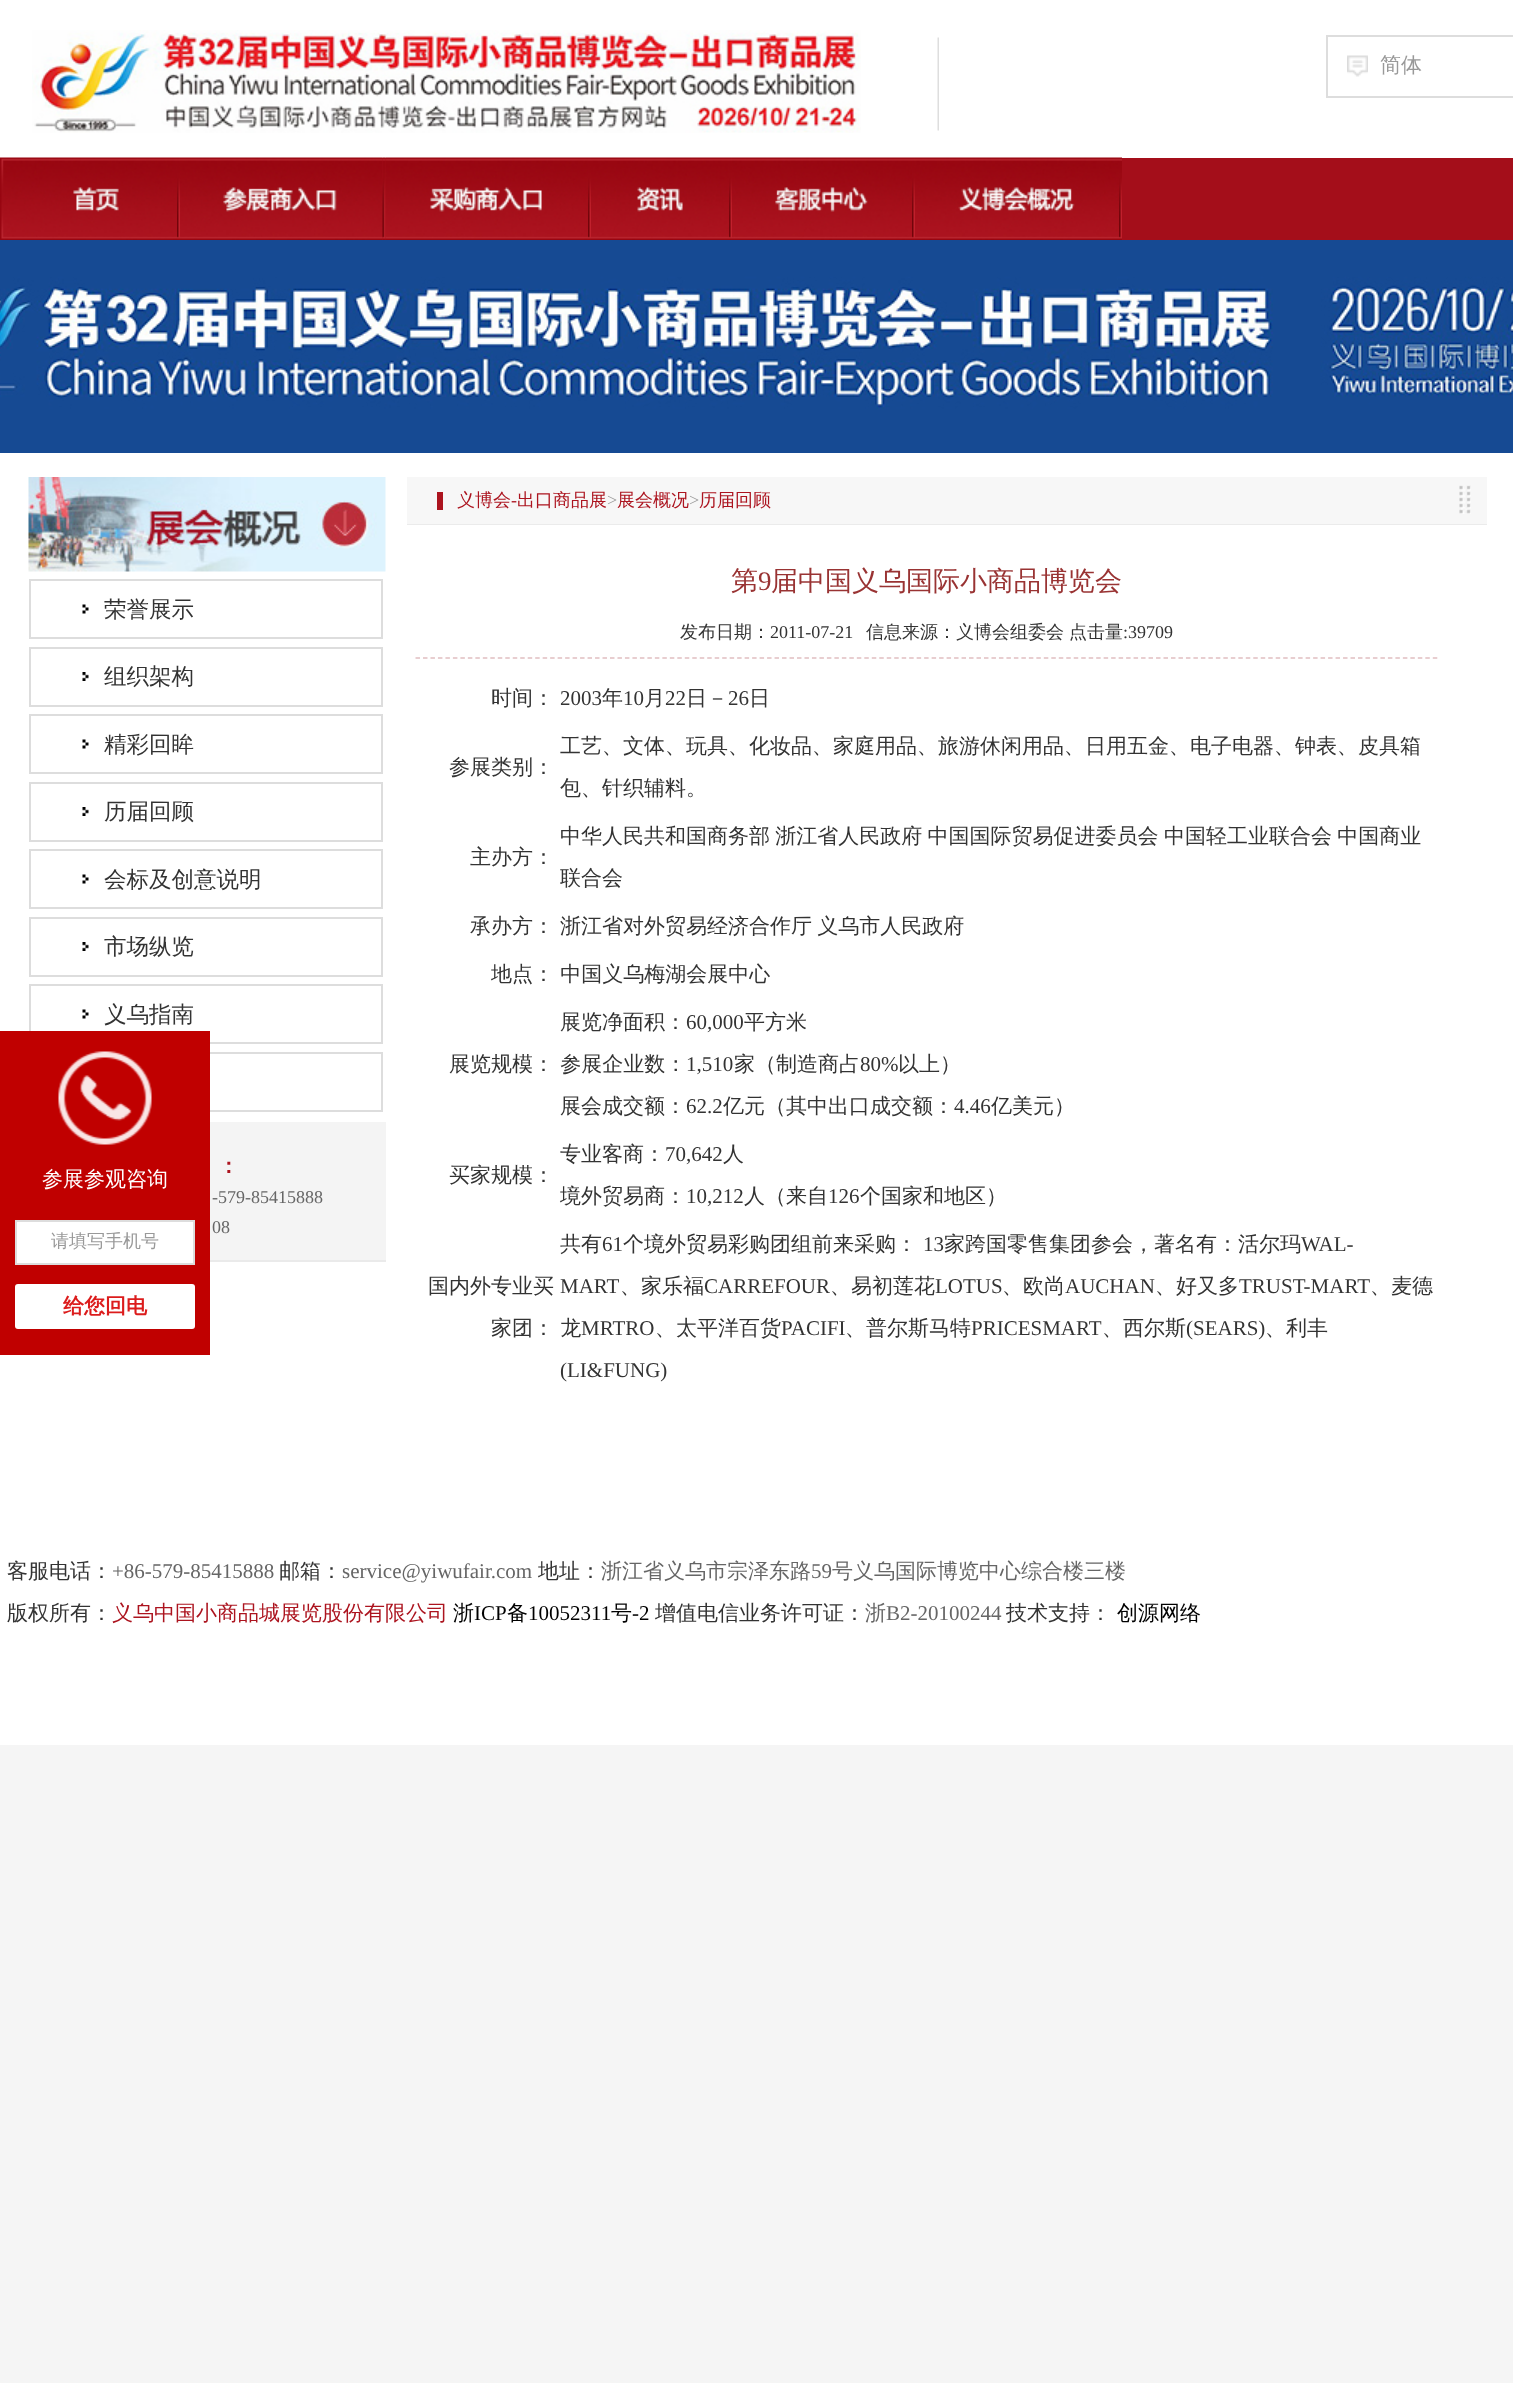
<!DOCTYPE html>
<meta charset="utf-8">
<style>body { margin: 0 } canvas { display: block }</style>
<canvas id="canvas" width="1513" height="2383"></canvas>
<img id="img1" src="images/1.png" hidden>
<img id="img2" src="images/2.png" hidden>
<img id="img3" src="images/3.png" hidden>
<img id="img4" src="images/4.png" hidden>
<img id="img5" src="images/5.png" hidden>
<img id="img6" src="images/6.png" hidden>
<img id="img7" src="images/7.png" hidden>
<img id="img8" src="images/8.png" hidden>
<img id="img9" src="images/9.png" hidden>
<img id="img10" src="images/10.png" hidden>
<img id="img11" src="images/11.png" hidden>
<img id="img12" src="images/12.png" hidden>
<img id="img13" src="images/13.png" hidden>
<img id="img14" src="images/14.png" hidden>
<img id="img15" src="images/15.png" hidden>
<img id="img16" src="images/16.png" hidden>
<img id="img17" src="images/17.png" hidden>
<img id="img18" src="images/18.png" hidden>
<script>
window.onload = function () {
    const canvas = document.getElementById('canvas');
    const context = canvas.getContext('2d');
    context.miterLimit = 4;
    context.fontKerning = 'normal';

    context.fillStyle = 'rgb(245, 245, 245)';
    context.fillRect(0, 0, 1513, 2383);
    context.fillStyle = 'rgb(255, 255, 255)';
    context.fillRect(0, 0, 1513, 1745);
    context.drawImage(document.getElementById('img1'), 32, 30, 829, 103);
    context.drawImage(document.getElementById('img2'), 937, 37, 2, 94);
    context.strokeStyle = 'rgb(221, 221, 221)';
    context.lineWidth = 2;
    context.strokeRect(1327, 36, 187, 61);
    context.drawImage(document.getElementById('img3'), 1347, 55, 21, 22);
    context.fillStyle = 'rgb(164, 14, 26)';
    context.fillRect(382, 158, 1131, 82);
    context.drawImage(document.getElementById('img4'), 0, 157, 177, 83);
    context.drawImage(document.getElementById('img5'), 177, 157, 3, 83);
    context.drawImage(document.getElementById('img6'), 180, 157, 203, 83);
    context.drawImage(document.getElementById('img7'), 382, 157, 4, 83);
    context.drawImage(document.getElementById('img8'), 385, 157, 203, 83);
    context.drawImage(document.getElementById('img9'), 588, 157, 3, 83);
    context.drawImage(document.getElementById('img10'), 591, 157, 138, 83);
    context.drawImage(document.getElementById('img9'), 729, 157, 3, 83);
    context.drawImage(document.getElementById('img11'), 732, 157, 180, 83);
    context.drawImage(document.getElementById('img5'), 912, 157, 3, 83);
    context.drawImage(document.getElementById('img12'), 915, 157, 204, 83);
    context.drawImage(document.getElementById('img9'), 1119, 157, 3, 83);
    context.drawImage(document.getElementById('img13'), 0, 240, 1513, 213);
    context.fillStyle = 'rgb(247, 247, 247)';
    context.fillRect(407, 477, 1080, 47);
    context.fillStyle = 'rgb(235, 235, 235)';
    context.fillRect(407, 524, 1080, 1);
    context.fillStyle = 'rgb(172, 20, 31)';
    context.fillRect(437, 492, 6, 18);
    context.drawImage(document.getElementById('img14'), 1459, 485, 12, 29);
    context.drawImage(document.getElementById('img15'), 28, 477, 358, 95);
    context.drawImage(document.getElementById('img16'), 82, 604, 7, 10);
    context.strokeRect(30, 580, 352, 58);
    context.drawImage(document.getElementById('img17'), 82, 672, 7, 9);
    context.strokeRect(30, 648, 352, 58);
    context.drawImage(document.getElementById('img16'), 82, 739, 7, 10);
    context.strokeRect(30, 715, 352, 58);
    context.drawImage(document.getElementById('img17'), 82, 807, 7, 9);
    context.strokeRect(30, 783, 352, 58);
    context.drawImage(document.getElementById('img16'), 82, 874, 7, 10);
    context.strokeRect(30, 850, 352, 58);
    context.drawImage(document.getElementById('img17'), 82, 942, 7, 9);
    context.strokeRect(30, 918, 352, 58);
    context.drawImage(document.getElementById('img16'), 82, 1009, 7, 10);
    context.strokeRect(30, 985, 352, 58);
    context.strokeRect(30, 1053, 352, 58);
    context.fillStyle = 'rgb(244, 244, 244)';
    context.fillRect(210, 1122, 176, 138);
    context.fillStyle = 'rgb(234, 234, 234)';
    context.fillRect(210, 1260, 176, 2);
    context.beginPath();
    context.moveTo(415.5, 658);
    context.lineTo(1438.5, 658);
    context.strokeStyle = 'rgb(225, 191, 193)';
    context.lineWidth = 1.5;
    context.setLineDash([4.5, 2.98]);
    context.stroke();
    context.fillStyle = 'rgb(192, 0, 0)';
    context.fillRect(0, 1031, 210, 324);
    context.drawImage(document.getElementById('img18'), 58, 1051, 94, 94);
    context.fillStyle = 'rgb(255, 255, 255)';
    context.beginPath();
    context.rect(16, 1221, 178, 43);
    context.fill();
    context.strokeStyle = 'rgb(221, 221, 221)';
    context.lineWidth = 2;
    context.setLineDash([]);
    context.stroke();
    context.beginPath();
    context.roundRect(15, 1284, 180, 45, 3);
    context.fill();
    context.font = '500 21px WenQuanYi Zen Hei';
    context.fillStyle = 'rgb(153, 153, 153)';
    context.fillText('简体', 1380, 72);
    context.font = '500 18px WenQuanYi Zen Hei';
    context.fillStyle = 'rgb(172, 20, 31)';
    context.fillText('义博会', 457, 506);
    context.font = '18px Liberation Serif';
    context.fillText('-', 511, 506);
    context.font = '500 18px WenQuanYi Zen Hei';
    context.fillText('出口商品展', 517, 506);
    context.font = '18px Liberation Serif';
    context.fillStyle = 'rgb(153, 153, 153)';
    context.fillText('>', 607, 506);
    context.font = '500 18px WenQuanYi Zen Hei';
    context.fillStyle = 'rgb(172, 20, 31)';
    context.fillText('展会概况', 617, 506);
    context.font = '18px Liberation Serif';
    context.fillStyle = 'rgb(153, 153, 153)';
    context.fillText('>', 689, 506);
    context.font = '500 18px WenQuanYi Zen Hei';
    context.fillStyle = 'rgb(172, 20, 31)';
    context.fillText('历届回顾', 699, 506);
    context.font = '500 22.5px WenQuanYi Zen Hei';
    context.fillStyle = 'rgb(51, 51, 51)';
    context.fillText('荣誉展示', 104, 617);
    context.fillText('组织架构', 104, 684);
    context.fillText('精彩回眸', 104, 752);
    context.fillText('历届回顾', 104, 819);
    context.fillText('会标及创意说明', 104, 887);
    context.fillText('市场纵览', 104, 954);
    context.fillText('义乌指南', 104, 1022);
    context.font = 'bold 21px WenQuanYi Zen Hei';
    context.fillStyle = 'rgb(172, 20, 31)';
    context.fillText('：', 218, 1173);
    context.font = '18px Liberation Serif';
    context.fillStyle = 'rgb(102, 102, 102)';
    context.fillText('-579-85415888', 212, 1203);
    context.fillText('08', 212, 1233);
    context.font = '500 27px WenQuanYi Zen Hei';
    context.fillStyle = 'rgb(153, 51, 51)';
    context.fillText('第', 731, 590);
    context.font = '27px Liberation Serif';
    context.fillText('9', 758, 590);
    context.font = '500 27px WenQuanYi Zen Hei';
    context.fillText('届中国义乌国际小商品博览会', 771, 590);
    context.font = '500 18px WenQuanYi Zen Hei';
    context.fillStyle = 'rgb(51, 51, 51)';
    context.fillText('发布日期：', 680, 638);
    context.font = '18px Liberation Serif';
    context.fillText('2011-07-21', 770, 638);
    context.font = '500 18px WenQuanYi Zen Hei';
    context.fillText('信息来源：义博会组委会', 866, 638);
    context.fillText('点击量', 1069, 638);
    context.font = '18px Liberation Serif';
    context.fillText(':39709', 1123, 638);
    context.font = '500 21px WenQuanYi Zen Hei';
    context.fillText('时间：', 491, 705);
    context.font = '21px Liberation Serif';
    context.fillText('2003', 560, 705);
    context.font = '500 21px WenQuanYi Zen Hei';
    context.fillText('年', 602, 705);
    context.font = '21px Liberation Serif';
    context.fillText('10', 623, 705);
    context.font = '500 21px WenQuanYi Zen Hei';
    context.fillText('月', 644, 705);
    context.font = '21px Liberation Serif';
    context.fillText('22', 665, 705);
    context.font = '500 21px WenQuanYi Zen Hei';
    context.fillText('日－', 686, 705);
    context.font = '21px Liberation Serif';
    context.fillText('26', 728, 705);
    context.font = '500 21px WenQuanYi Zen Hei';
    context.fillText('日', 749, 705);
    context.fillText('参展类别：', 449, 774);
    context.fillText('工艺、文体、玩具、化妆品、家庭用品、旅游休闲用品、日用五金、电子电器、钟表、皮具箱', 560, 753);
    context.fillText('包、针织辅料。', 560, 795);
    context.fillText('主办方：', 470, 864);
    context.wordSpacing = '-1px';
    context.fillText('中华人民共和国商务部 浙江省人民政府 中国国际贸易促进委员会 中国轻工业联合会 中国商业', 560, 843);
    context.wordSpacing = '0px';
    context.fillText('联合会', 560, 885);
    context.fillText('承办方：', 470, 933);
    context.wordSpacing = '-1px';
    context.fillText('浙江省对外贸易经济合作厅 义乌市人民政府', 560, 933);
    context.wordSpacing = '0px';
    context.fillText('地点： 中国义乌梅湖会展中心', 491, 981);
    context.fillText('展览净面积：', 560, 1029);
    context.font = '21px Liberation Serif';
    context.fillText('60,000', 686, 1029);
    context.font = '500 21px WenQuanYi Zen Hei';
    context.fillText('平方米', 744, 1029);
    context.font = '21px Liberation Serif';
    context.fillText('1,510', 686, 1071);
    context.font = '500 21px WenQuanYi Zen Hei';
    context.fillText('家（制造商占', 734, 1071);
    context.font = '21px Liberation Serif';
    context.fillText('80%', 860, 1071);
    context.font = '500 21px WenQuanYi Zen Hei';
    context.fillText('以上）', 898, 1071);
    context.fillText('展会成交额：', 560, 1113);
    context.font = '21px Liberation Serif';
    context.fillText('62.2', 686, 1113);
    context.font = '500 21px WenQuanYi Zen Hei';
    context.fillText('亿元（其中出口成交额：', 723, 1113);
    context.font = '21px Liberation Serif';
    context.fillText('4.46', 954, 1113);
    context.font = '500 21px WenQuanYi Zen Hei';
    context.fillText('亿美元）', 991, 1113);
    context.fillText('展览规模： 参展企业数：', 449, 1071);
    context.fillText('买家规模：', 449, 1182);
    context.fillText('专业客商：', 560, 1161);
    context.font = '21px Liberation Serif';
    context.fillText('70,642', 665, 1161);
    context.font = '500 21px WenQuanYi Zen Hei';
    context.fillText('人', 723, 1161);
    context.fillText('境外贸易商：', 560, 1203);
    context.font = '21px Liberation Serif';
    context.fillText('10,212', 686, 1203);
    context.font = '500 21px WenQuanYi Zen Hei';
    context.fillText('人（来自', 744, 1203);
    context.font = '21px Liberation Serif';
    context.fillText('126', 828, 1203);
    context.font = '500 21px WenQuanYi Zen Hei';
    context.fillText('个国家和地区）', 860, 1203);
    context.fillText('国内外专业买', 428, 1293);
    context.fillText('家团： 龙', 491, 1335);
    context.fillText('共有', 560, 1251);
    context.font = '21px Liberation Serif';
    context.fillText('61', 602, 1251);
    context.font = '500 21px WenQuanYi Zen Hei';
    context.fillText('个境外贸易彩购团组前来采购：', 623, 1251);
    context.font = '21px Liberation Serif';
    context.fillText('13', 923, 1251);
    context.font = '500 21px WenQuanYi Zen Hei';
    context.fillText('家跨国零售集团参会，著名有：活尔玛', 944, 1251);
    context.font = '21px Liberation Serif';
    context.fillText('WAL-', 1301, 1251);
    context.fillText('MART', 560, 1293);
    context.font = '500 21px WenQuanYi Zen Hei';
    context.fillText('、家乐福', 620, 1293);
    context.font = '21px Liberation Serif';
    context.fillText('CARREFOUR', 704, 1293);
    context.font = '500 21px WenQuanYi Zen Hei';
    context.fillText('、易初莲花', 830, 1293);
    context.font = '21px Liberation Serif';
    context.fillText('LOTUS', 935, 1293);
    context.font = '500 21px WenQuanYi Zen Hei';
    context.fillText('、欧尚', 1002, 1293);
    context.font = '21px Liberation Serif';
    context.fillText('AUCHAN', 1065, 1293);
    context.font = '500 21px WenQuanYi Zen Hei';
    context.fillText('、好又多', 1155, 1293);
    context.font = '21px Liberation Serif';
    context.fillText('TRUST-MART', 1239, 1293);
    context.font = '500 21px WenQuanYi Zen Hei';
    context.fillText('、麦德', 1370, 1293);
    context.font = '21px Liberation Serif';
    context.fillText('MRTRO', 581, 1335);
    context.font = '500 21px WenQuanYi Zen Hei';
    context.fillText('、太平洋百货', 655, 1335);
    context.font = '21px Liberation Serif';
    context.fillText('PACIFI', 781, 1335);
    context.font = '500 21px WenQuanYi Zen Hei';
    context.fillText('、普尔斯马特', 845, 1335);
    context.font = '21px Liberation Serif';
    context.fillText('PRICESMART', 971, 1335);
    context.font = '500 21px WenQuanYi Zen Hei';
    context.fillText('、西尔斯', 1102, 1335);
    context.font = '21px Liberation Serif';
    context.fillText('(SEARS)', 1186, 1335);
    context.font = '500 21px WenQuanYi Zen Hei';
    context.fillText('、利丰', 1265, 1335);
    context.font = '21px Liberation Serif';
    context.fillText('(LI&FUNG)', 560, 1377);
    context.font = '500 21px WenQuanYi Zen Hei';
    context.fillStyle = 'rgb(255, 255, 255)';
    context.fillText('参展参观咨询', 42, 1186);
    context.font = '500 18px WenQuanYi Zen Hei';
    context.fillStyle = 'rgb(153, 153, 153)';
    context.fillText('请填写手机号', 51, 1247);
    context.font = 'bold 21px WenQuanYi Zen Hei';
    context.fillStyle = 'rgb(220, 28, 28)';
    context.fillText('给您回电', 63, 1313);
    context.font = '500 21px WenQuanYi Zen Hei';
    context.fillStyle = 'rgb(51, 51, 51)';
    context.fillText('客服电话：', 7, 1578);
    context.font = '21px Liberation Serif';
    context.fillStyle = 'rgb(102, 102, 102)';
    context.fillText('+86-579-85415888', 112, 1578);
    context.font = '500 21px WenQuanYi Zen Hei';
    context.fillStyle = 'rgb(51, 51, 51)';
    context.fillText('邮箱：', 279, 1578);
    context.font = '21px Liberation Serif';
    context.fillStyle = 'rgb(102, 102, 102)';
    context.fillText('service@yiwufair.com', 342, 1578);
    context.font = '500 21px WenQuanYi Zen Hei';
    context.fillStyle = 'rgb(51, 51, 51)';
    context.fillText('地址：', 538, 1578);
    context.fillStyle = 'rgb(102, 102, 102)';
    context.fillText('浙江省义乌市宗泽东路', 601, 1578);
    context.font = '21px Liberation Serif';
    context.fillText('59', 811, 1578);
    context.font = '500 21px WenQuanYi Zen Hei';
    context.fillText('号义乌国际博览中心综合楼三楼', 832, 1578);
    context.fillStyle = 'rgb(51, 51, 51)';
    context.fillText('版权所有：', 7, 1620);
    context.fillStyle = 'rgb(172, 20, 31)';
    context.fillText('义乌中国小商品城展览股份有限公司', 112, 1620);
    context.fillStyle = 'rgb(0, 0, 0)';
    context.fillText('浙', 453, 1620);
    context.font = '21px Liberation Serif';
    context.fillText('ICP', 474, 1620);
    context.font = '500 21px WenQuanYi Zen Hei';
    context.fillText('备', 507, 1620);
    context.font = '21px Liberation Serif';
    context.fillText('10052311', 528, 1620);
    context.font = '500 21px WenQuanYi Zen Hei';
    context.fillText('号', 611, 1620);
    context.font = '21px Liberation Serif';
    context.fillText('-2', 632, 1620);
    context.font = '500 21px WenQuanYi Zen Hei';
    context.fillStyle = 'rgb(51, 51, 51)';
    context.fillText('增值电信业务许可证：', 655, 1620);
    context.fillStyle = 'rgb(102, 102, 102)';
    context.fillText('浙', 865, 1620);
    context.font = '21px Liberation Serif';
    context.fillText('B2-20100244', 886, 1620);
    context.font = '500 21px WenQuanYi Zen Hei';
    context.fillStyle = 'rgb(51, 51, 51)';
    context.fillText('技术支持：', 1006, 1620);
    context.fillStyle = 'rgb(0, 0, 0)';
    context.fillText('创源网络', 1117, 1620);
};
</script>
